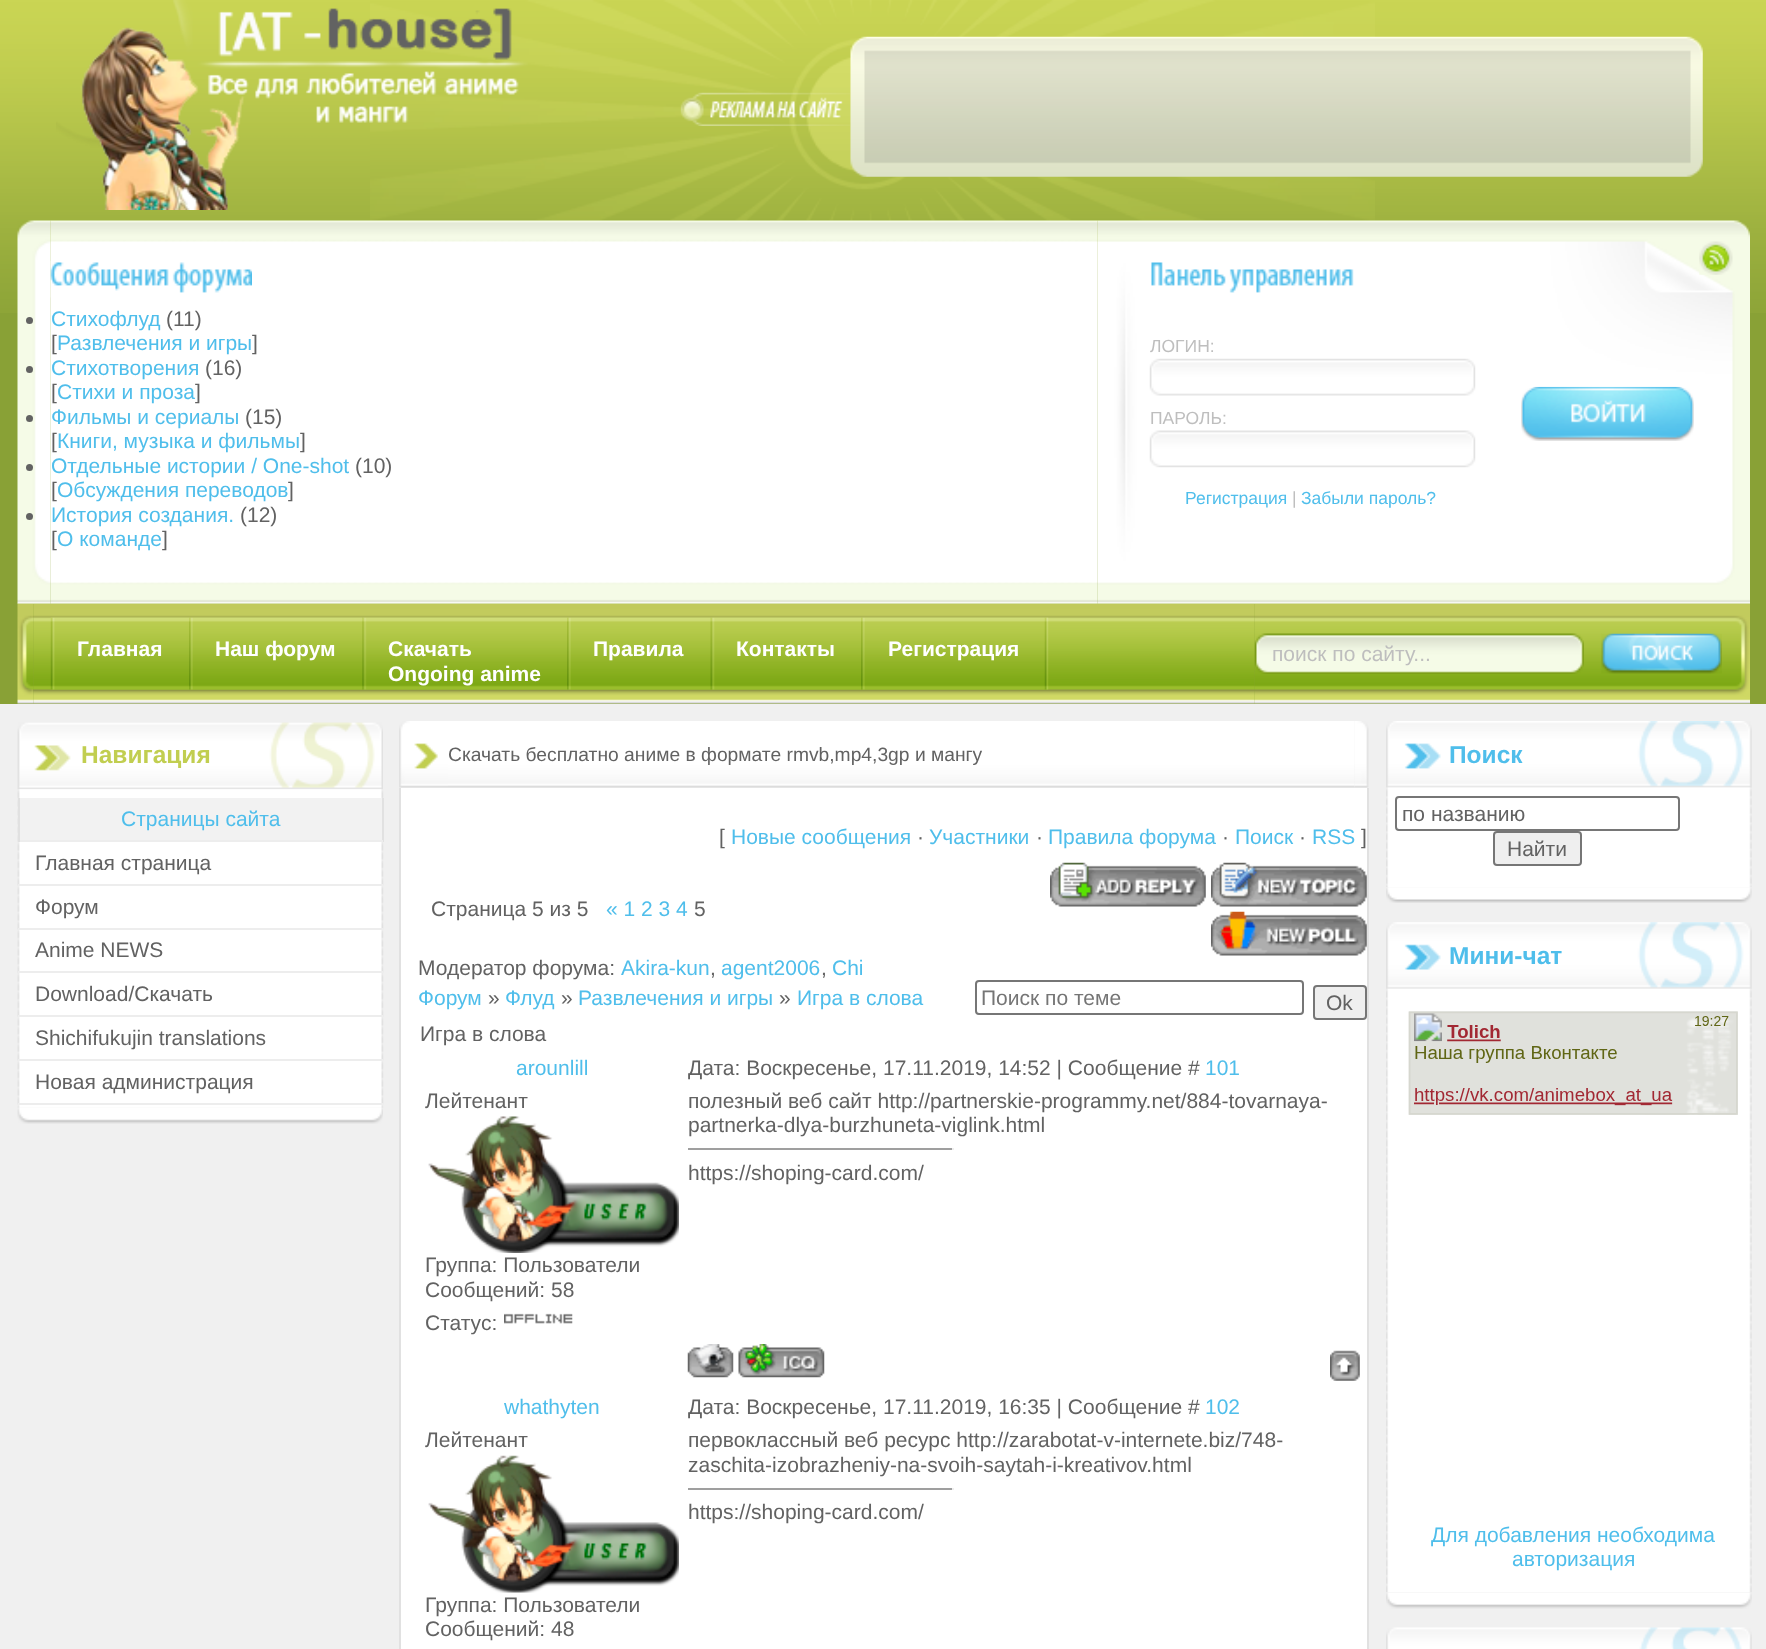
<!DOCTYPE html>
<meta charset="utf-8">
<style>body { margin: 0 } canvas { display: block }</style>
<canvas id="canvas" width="1766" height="1649"></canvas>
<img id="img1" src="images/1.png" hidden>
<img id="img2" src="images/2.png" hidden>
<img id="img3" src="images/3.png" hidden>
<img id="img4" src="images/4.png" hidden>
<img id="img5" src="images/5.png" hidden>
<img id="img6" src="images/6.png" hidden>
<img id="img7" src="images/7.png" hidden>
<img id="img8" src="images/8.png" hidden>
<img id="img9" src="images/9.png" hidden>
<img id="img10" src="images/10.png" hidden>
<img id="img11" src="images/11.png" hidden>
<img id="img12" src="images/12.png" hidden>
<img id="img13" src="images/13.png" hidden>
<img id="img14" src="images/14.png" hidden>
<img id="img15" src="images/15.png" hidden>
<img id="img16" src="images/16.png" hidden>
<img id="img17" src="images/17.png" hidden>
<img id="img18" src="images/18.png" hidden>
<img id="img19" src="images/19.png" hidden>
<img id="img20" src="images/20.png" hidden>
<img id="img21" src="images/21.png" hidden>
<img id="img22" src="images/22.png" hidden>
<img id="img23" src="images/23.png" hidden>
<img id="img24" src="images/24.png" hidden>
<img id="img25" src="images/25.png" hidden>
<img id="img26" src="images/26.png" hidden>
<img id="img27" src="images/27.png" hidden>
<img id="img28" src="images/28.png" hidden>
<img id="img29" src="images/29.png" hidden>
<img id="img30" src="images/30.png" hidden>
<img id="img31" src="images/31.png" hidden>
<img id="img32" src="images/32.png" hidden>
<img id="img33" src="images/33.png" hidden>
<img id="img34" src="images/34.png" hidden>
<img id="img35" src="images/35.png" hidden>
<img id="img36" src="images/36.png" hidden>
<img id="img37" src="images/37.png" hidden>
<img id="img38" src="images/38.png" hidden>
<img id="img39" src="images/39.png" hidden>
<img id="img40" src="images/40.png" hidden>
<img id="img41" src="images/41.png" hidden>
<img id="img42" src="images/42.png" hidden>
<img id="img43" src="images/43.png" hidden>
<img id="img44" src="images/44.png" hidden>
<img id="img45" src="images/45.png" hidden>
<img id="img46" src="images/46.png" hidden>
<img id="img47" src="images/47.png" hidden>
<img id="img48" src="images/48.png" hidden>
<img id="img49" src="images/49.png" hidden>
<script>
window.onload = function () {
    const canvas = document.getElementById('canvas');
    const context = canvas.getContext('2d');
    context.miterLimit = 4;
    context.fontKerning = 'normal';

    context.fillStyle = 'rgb(137, 161, 54)';
    context.fillRect(0, 0, 1766, 1649);
    context.drawImage(document.getElementById('img1'), 0, 0, 1766, 313);
    context.drawImage(document.getElementById('img2'), 370, 0, 1005, 221);
    context.drawImage(document.getElementById('img3'), 56, 0, 472, 210);
    context.drawImage(document.getElementById('img4'), 680, 92, 170, 34);
    context.drawImage(document.getElementById('img5'), 850, 36, 853, 141);
    context.drawImage(document.getElementById('img6'), 17, 220, 34, 384);
    context.drawImage(document.getElementById('img7'), 50, 220, 1048, 384);
    context.drawImage(document.getElementById('img8'), 50, 261, 202, 37);
    context.fillStyle = 'rgb(98, 98, 98)';
    context.beginPath();
    context.arc(29.5, 320.5, 3.5, 0, 2 * Math.PI);
    context.fill();
    context.beginPath();
    context.arc(29.5, 369.5, 3.5, 0, 2 * Math.PI);
    context.fill();
    context.beginPath();
    context.arc(29.5, 418.5, 3.5, 0, 2 * Math.PI);
    context.fill();
    context.beginPath();
    context.arc(29.5, 467.5, 3.5, 0, 2 * Math.PI);
    context.fill();
    context.beginPath();
    context.arc(29.5, 516.5, 3.5, 0, 2 * Math.PI);
    context.fill();
    context.drawImage(document.getElementById('img9'), 1097, 220, 653, 384);
    context.drawImage(document.getElementById('img10'), 1151, 262, 203, 31);
    context.drawImage(document.getElementById('img11'), 1699, 241, 34, 34);
    context.drawImage(document.getElementById('img12'), 1149, 358, 327, 38);
    context.drawImage(document.getElementById('img13'), 1149, 430, 327, 38);
    context.drawImage(document.getElementById('img14'), 1521, 386, 173, 55);
    context.drawImage(document.getElementById('img15'), 17, 603, 17, 101);
    context.drawImage(document.getElementById('img16'), 33, 603, 1222, 101);
    context.drawImage(document.getElementById('img17'), 50, 617, 139, 73);
    context.drawImage(document.getElementById('img18'), 189, 617, 173, 73);
    context.drawImage(document.getElementById('img19'), 362, 617, 205, 73);
    context.drawImage(document.getElementById('img20'), 567, 617, 144, 73);
    context.drawImage(document.getElementById('img21'), 710, 617, 151, 73);
    context.drawImage(document.getElementById('img22'), 861, 617, 184, 73);
    context.drawImage(document.getElementById('img23'), 1044, 617, 5, 73);
    context.drawImage(document.getElementById('img24'), 1254, 603, 496, 101);
    context.drawImage(document.getElementById('img25'), 1254, 633, 330, 41);
    context.drawImage(document.getElementById('img26'), 1601, 633, 121, 41);
    context.fillStyle = 'rgb(240, 240, 240)';
    context.fillRect(0, 704, 399, 945);
    context.drawImage(document.getElementById('img27'), 17, 722, 366, 67);
    context.drawImage(document.getElementById('img28'), 17, 789, 367, 319);
    context.fillStyle = 'rgb(242, 242, 242)';
    context.fillRect(20, 798, 362, 42);
    context.fillStyle = 'rgb(225, 225, 225)';
    context.fillRect(382, 798, 2, 44);
    context.fillStyle = 'rgb(237, 237, 237)';
    context.fillRect(18, 840, 365, 2);
    context.fillStyle = 'rgb(225, 225, 225)';
    context.fillRect(18, 798, 2, 44);
    context.fillStyle = 'rgb(237, 237, 237)';
    context.fillRect(18, 884, 365, 2);
    context.fillRect(18, 928, 365, 2);
    context.fillRect(18, 971, 365, 2);
    context.fillRect(18, 1015, 365, 2);
    context.fillRect(18, 1059, 365, 2);
    context.fillRect(18, 1103, 365, 2);
    context.drawImage(document.getElementById('img29'), 17, 1108, 366, 16);
    context.fillStyle = 'rgb(240, 240, 240)';
    context.fillRect(399, 704, 970, 84);
    context.drawImage(document.getElementById('img30'), 399, 721, 49, 67);
    context.drawImage(document.getElementById('img31'), 448, 721, 907, 67);
    context.drawImage(document.getElementById('img32'), 1354, 721, 15, 67);
    context.fillStyle = 'rgb(255, 255, 255)';
    context.fillRect(401, 788, 966, 861);
    context.fillStyle = 'rgb(225, 225, 225)';
    context.fillRect(1367, 788, 2, 861);
    context.fillRect(399, 788, 2, 861);
    context.drawImage(document.getElementById('img33'), 1050, 862, 156, 45);
    context.drawImage(document.getElementById('img34'), 1211, 862, 156, 45);
    context.drawImage(document.getElementById('img35'), 1211, 911, 156, 45);
    context.beginPath();
    context.roundRect(976, 981, 327, 33, 3);
    context.strokeStyle = 'rgb(118, 118, 118)';
    context.lineWidth = 2;
    context.stroke();
    context.fillStyle = 'rgb(239, 239, 239)';
    context.beginPath();
    context.roundRect(1314, 986, 52, 33, 3);
    context.fill();
    context.stroke();
    context.drawImage(document.getElementById('img36'), 428, 1116, 251, 137);
    context.drawImage(document.getElementById('img37'), 504, 1313, 69, 11);
    context.fillStyle = 'rgb(159, 159, 159)';
    context.fillRect(688, 1148, 266, 2);
    context.fillStyle = 'rgb(238, 238, 238)';
    context.fillRect(952, 1148, 2, 2);
    context.drawImage(document.getElementById('img38'), 687, 1344, 47, 34);
    context.drawImage(document.getElementById('img39'), 738, 1344, 87, 34);
    context.drawImage(document.getElementById('img40'), 1330, 1350, 30, 31);
    context.drawImage(document.getElementById('img41'), 428, 1455, 251, 138);
    context.fillStyle = 'rgb(159, 159, 159)';
    context.fillRect(688, 1488, 266, 2);
    context.fillStyle = 'rgb(238, 238, 238)';
    context.fillRect(952, 1488, 2, 2);
    context.fillStyle = 'rgb(240, 240, 240)';
    context.fillRect(1369, 704, 397, 945);
    context.drawImage(document.getElementById('img42'), 1386, 721, 366, 67);
    context.drawImage(document.getElementById('img43'), 1386, 787, 366, 100);
    context.beginPath();
    context.roundRect(1396, 797, 283, 33, 3);
    context.stroke();
    context.fillStyle = 'rgb(239, 239, 239)';
    context.beginPath();
    context.roundRect(1494, 832, 87, 33, 3);
    context.fill();
    context.stroke();
    context.drawImage(document.getElementById('img44'), 1386, 887, 366, 16);
    context.drawImage(document.getElementById('img45'), 1386, 922, 366, 67);
    context.drawImage(document.getElementById('img46'), 1386, 988, 366, 605);
    context.drawImage(document.getElementById('img47'), 1408, 1011, 330, 104);
    context.drawImage(document.getElementById('img48'), 1386, 1593, 366, 16);
    context.drawImage(document.getElementById('img49'), 1386, 1627, 366, 22);
    context.font = '21px Liberation Sans';
    context.fillStyle = 'rgb(79, 190, 235)';
    context.fillText('Стихофлуд', 51, 326);
    context.fillStyle = 'rgb(98, 98, 98)';
    context.fillText('(11)', 166, 326);
    context.fillText('[', 51, 350);
    context.fillStyle = 'rgb(79, 190, 235)';
    context.fillText('Развлечения и игры', 57, 350);
    context.fillStyle = 'rgb(98, 98, 98)';
    context.fillText(']', 252, 350);
    context.fillStyle = 'rgb(79, 190, 235)';
    context.fillText('Стихотворения', 51, 375);
    context.fillStyle = 'rgb(98, 98, 98)';
    context.fillText('(16)', 205, 375);
    context.fillText('[', 51, 399);
    context.fillStyle = 'rgb(79, 190, 235)';
    context.fillText('Стихи и проза', 57, 399);
    context.fillStyle = 'rgb(98, 98, 98)';
    context.fillText(']', 195, 399);
    context.fillStyle = 'rgb(79, 190, 235)';
    context.fillText('Фильмы и сериалы', 51, 424);
    context.fillStyle = 'rgb(98, 98, 98)';
    context.fillText('(15)', 245, 424);
    context.fillText('[', 51, 448);
    context.fillStyle = 'rgb(79, 190, 235)';
    context.fillText('Книги, музыка и фильмы', 57, 448);
    context.fillStyle = 'rgb(98, 98, 98)';
    context.fillText(']', 300, 448);
    context.fillStyle = 'rgb(79, 190, 235)';
    context.fillText('Отдельные истории / One-shot', 51, 473);
    context.fillStyle = 'rgb(98, 98, 98)';
    context.fillText('(10)', 355, 473);
    context.fillText('[', 51, 497);
    context.fillStyle = 'rgb(79, 190, 235)';
    context.fillText('Обсуждения переводов', 57, 497);
    context.fillStyle = 'rgb(98, 98, 98)';
    context.fillText(']', 288, 497);
    context.fillStyle = 'rgb(79, 190, 235)';
    context.fillText('История создания.', 51, 522);
    context.fillStyle = 'rgb(98, 98, 98)';
    context.fillText('(12)', 240, 522);
    context.fillText('[', 51, 546);
    context.fillStyle = 'rgb(79, 190, 235)';
    context.fillText('О команде', 57, 546);
    context.fillStyle = 'rgb(98, 98, 98)';
    context.fillText(']', 162, 546);
    context.font = '17.5px Liberation Sans';
    context.fillStyle = 'rgb(190, 190, 190)';
    context.fillText('ЛОГИН:', 1150, 352);
    context.fillText('ПАРОЛЬ:', 1150, 424);
    context.fillStyle = 'rgb(79, 190, 235)';
    context.fillText('Регистрация', 1185, 504);
    context.fillStyle = 'rgb(190, 190, 190)';
    context.fillText('|', 1292, 504);
    context.fillStyle = 'rgb(79, 190, 235)';
    context.fillText('Забыли пароль?', 1301, 504);
    context.font = 'bold 21px Liberation Sans';
    context.fillStyle = 'rgb(255, 255, 255)';
    context.fillText('Главная', 77, 656);
    context.fillText('Наш форум', 215, 656);
    context.fillText('Скачать', 388, 656);
    context.fillText('Ongoing anime', 388, 681);
    context.fillText('Правила', 593, 656);
    context.fillText('Контакты', 736, 656);
    context.fillText('Регистрация', 888, 656);
    context.font = '21px Liberation Sans';
    context.fillStyle = 'rgb(190, 190, 190)';
    context.fillText('поиск по сайту...', 1272, 661);
    context.font = 'bold 24.5px Liberation Sans';
    context.fillStyle = 'rgb(193, 206, 80)';
    context.fillText('Навигация', 81, 763);
    context.font = '21px Liberation Sans';
    context.fillStyle = 'rgb(79, 190, 235)';
    context.fillText('Страницы сайта', 121, 826);
    context.fillStyle = 'rgb(98, 98, 98)';
    context.fillText('Главная страница', 35, 870);
    context.fillText('Форум', 35, 914);
    context.fillText('Anime NEWS', 35, 957);
    context.fillText('Download/Скачать', 35, 1001);
    context.fillText('Shichifukujin translations', 35, 1045);
    context.fillText('Новая администрация', 35, 1089);
    context.font = '19.25px Liberation Sans';
    context.fillText('Скачать бесплатно аниме в формате rmvb,mp4,3gp и мангу', 448, 761);
    context.font = '21px Liberation Sans';
    context.fillText('[', 719, 844);
    context.fillStyle = 'rgb(79, 190, 235)';
    context.fillText('Новые сообщения', 731, 844);
    context.fillStyle = 'rgb(98, 98, 98)';
    context.fillText('·', 917, 844);
    context.fillStyle = 'rgb(79, 190, 235)';
    context.fillText('Участники', 929, 844);
    context.fillStyle = 'rgb(98, 98, 98)';
    context.fillText('·', 1036, 844);
    context.fillStyle = 'rgb(79, 190, 235)';
    context.fillText('Правила форума', 1048, 844);
    context.fillStyle = 'rgb(98, 98, 98)';
    context.fillText('·', 1222, 844);
    context.fillStyle = 'rgb(79, 190, 235)';
    context.fillText('Поиск', 1235, 844);
    context.fillStyle = 'rgb(98, 98, 98)';
    context.fillText('·', 1299, 844);
    context.fillStyle = 'rgb(79, 190, 235)';
    context.fillText('RSS', 1312, 844);
    context.fillStyle = 'rgb(98, 98, 98)';
    context.fillText(']', 1361, 844);
    context.fillText('Страница 5 из 5', 431, 916);
    context.fillStyle = 'rgb(79, 190, 235)';
    context.fillText('« 1 2 3 4', 606, 916);
    context.fillStyle = 'rgb(98, 98, 98)';
    context.fillText('5', 694, 916);
    context.fillText('Модератор форума:', 418, 975);
    context.fillStyle = 'rgb(79, 190, 235)';
    context.fillText('Akira-kun', 621, 975);
    context.fillStyle = 'rgb(98, 98, 98)';
    context.fillText(',', 710, 975);
    context.fillStyle = 'rgb(79, 190, 235)';
    context.fillText('agent2006', 721, 975);
    context.fillStyle = 'rgb(98, 98, 98)';
    context.fillText(',', 821, 975);
    context.fillStyle = 'rgb(79, 190, 235)';
    context.fillText('Chi', 832, 975);
    context.fillText('Форум', 418, 1005);
    context.fillStyle = 'rgb(98, 98, 98)';
    context.fillText('»', 488, 1005);
    context.fillStyle = 'rgb(79, 190, 235)';
    context.fillText('Флуд', 505, 1005);
    context.fillStyle = 'rgb(98, 98, 98)';
    context.fillText('»', 561, 1005);
    context.fillStyle = 'rgb(79, 190, 235)';
    context.fillText('Развлечения и игры', 578, 1005);
    context.fillStyle = 'rgb(98, 98, 98)';
    context.fillText('»', 779, 1005);
    context.fillStyle = 'rgb(79, 190, 235)';
    context.fillText('Игра в слова', 797, 1005);
    context.fillStyle = 'rgb(117, 117, 117)';
    context.fillText('Поиск по теме', 981, 1005);
    context.fillStyle = 'rgb(98, 98, 98)';
    context.fillText('Ok', 1326, 1010);
    context.fillText('Игра в слова', 420, 1041);
    context.fillStyle = 'rgb(79, 190, 235)';
    context.fillText('arounlill', 516, 1075);
    context.fillStyle = 'rgb(98, 98, 98)';
    context.fillText('Дата: Воскресенье, 17.11.2019, 14:52 | Сообщение #', 688, 1075);
    context.fillStyle = 'rgb(79, 190, 235)';
    context.fillText('101', 1205, 1075);
    context.fillStyle = 'rgb(98, 98, 98)';
    context.fillText('Лейтенант', 425, 1108);
    context.fillText('Группа: Пользователи', 425, 1272);
    context.fillText('Сообщений: 58', 425, 1297);
    context.fillText('Статус:', 425, 1330);
    context.fillText('полезный веб сайт http://partnerskie-programmy.net/884-tovarnaya-', 688, 1108);
    context.fillText('partnerka-dlya-burzhuneta-viglink.html', 688, 1132);
    context.fillText('https://shoping-card.com/', 688, 1180);
    context.fillStyle = 'rgb(79, 190, 235)';
    context.fillText('whathyten', 504, 1414);
    context.fillStyle = 'rgb(98, 98, 98)';
    context.fillText('Дата: Воскресенье, 17.11.2019, 16:35 | Сообщение #', 688, 1414);
    context.fillStyle = 'rgb(79, 190, 235)';
    context.fillText('102', 1205, 1414);
    context.fillStyle = 'rgb(98, 98, 98)';
    context.fillText('Лейтенант', 425, 1447);
    context.fillText('Группа: Пользователи', 425, 1612);
    context.fillText('Сообщений: 48', 425, 1636);
    context.fillText('первоклассный веб ресурс http://zarabotat-v-internete.biz/748-', 688, 1447);
    context.fillText('zaschita-izobrazheniy-na-svoih-saytah-i-kreativov.html', 688, 1472);
    context.fillText('https://shoping-card.com/', 688, 1519);
    context.font = 'bold 24.5px Liberation Sans';
    context.fillStyle = 'rgb(79, 190, 235)';
    context.fillText('Поиск', 1449, 763);
    context.font = '21px Liberation Sans';
    context.fillStyle = 'rgb(98, 98, 98)';
    context.fillText('по названию', 1402, 821);
    context.fillText('Найти', 1507, 856);
    context.font = 'bold 24.5px Liberation Sans';
    context.fillStyle = 'rgb(79, 190, 235)';
    context.fillText('Мини-чат', 1449, 964);
    context.font = '21px Liberation Sans';
    context.fillText('Для добавления необходима', 1431, 1542);
    context.fillText('авторизация', 1512, 1566);
};
</script>
